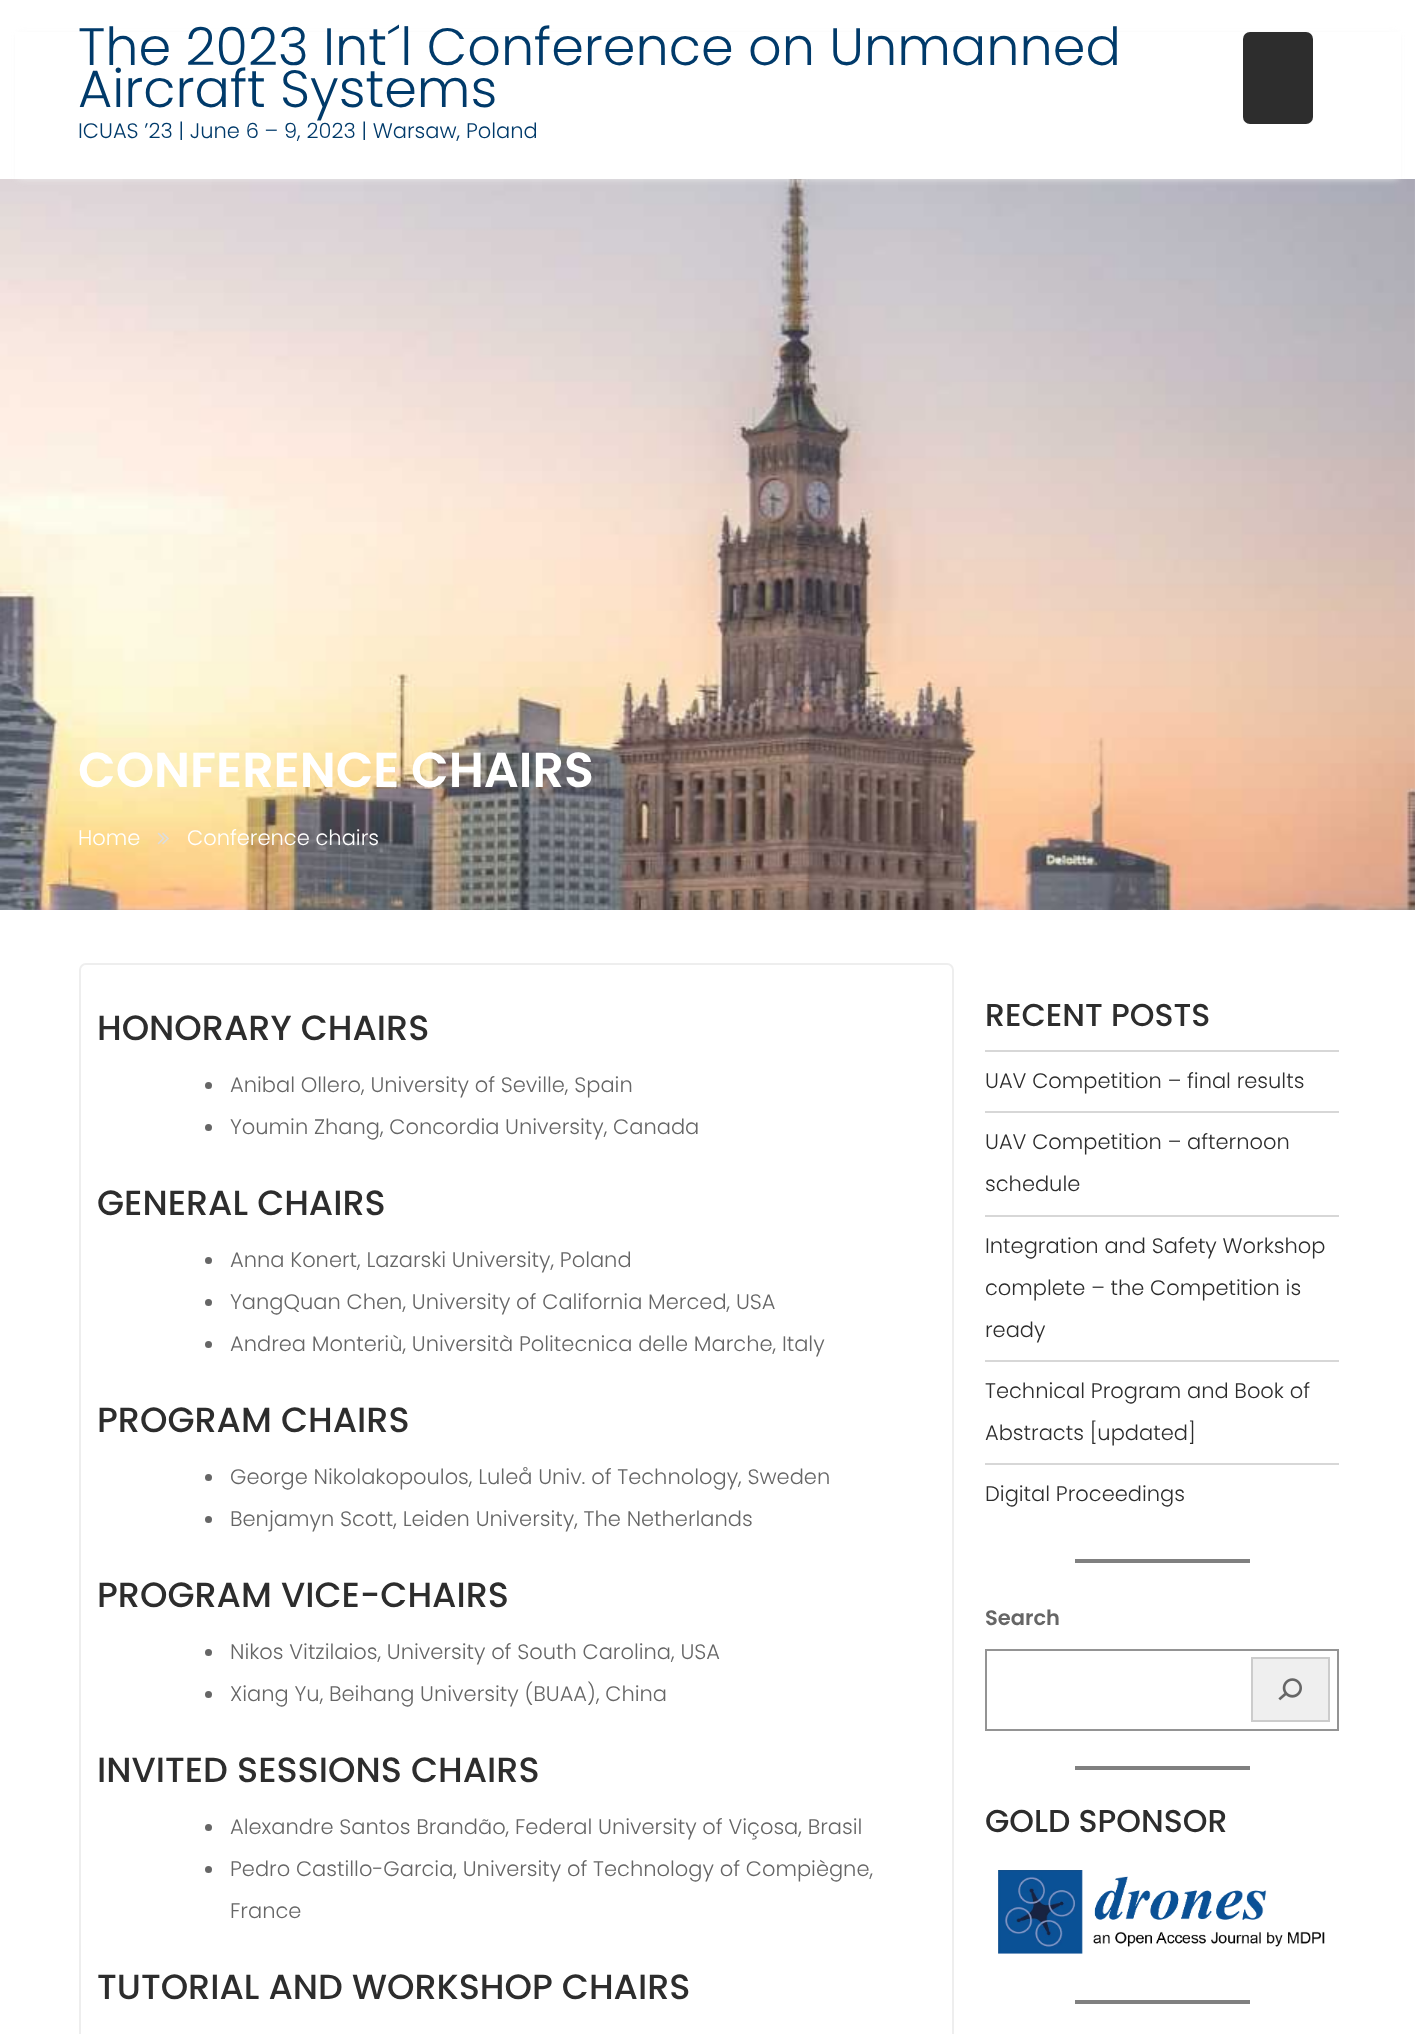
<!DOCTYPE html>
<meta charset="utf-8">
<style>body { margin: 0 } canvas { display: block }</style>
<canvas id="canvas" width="1415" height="2034"></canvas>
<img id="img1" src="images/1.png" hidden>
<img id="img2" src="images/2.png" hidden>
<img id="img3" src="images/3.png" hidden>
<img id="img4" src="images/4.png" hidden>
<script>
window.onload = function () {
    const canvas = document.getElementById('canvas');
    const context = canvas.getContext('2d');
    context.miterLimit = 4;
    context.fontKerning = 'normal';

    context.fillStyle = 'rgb(255, 255, 255)';
    context.fillRect(0, 0, 1415, 2034);
    context.drawImage(document.getElementById('img1'), 0, 179, 1415, 731);
    context.fillStyle = 'rgba(238, 238, 238, 0.9)';
    context.filter = 'blur(3.5px)';
    context.beginPath();
    context.rect(18, 35, 1380, 144);
    context.fill();
    context.filter = 'none';
    context.fillStyle = 'rgb(255, 255, 255)';
    context.fillRect(15, 32, 1386, 147);
    context.fillStyle = 'rgb(45, 45, 45)';
    context.beginPath();
    context.roundRect(1243, 32, 70, 92, 7);
    context.fill();
    context.drawImage(document.getElementById('img2'), 157, 832, 12, 13);
    context.beginPath();
    context.roundRect(80, 964, 873, 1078, 6);
    context.strokeStyle = 'rgb(238, 238, 238)';
    context.lineWidth = 2;
    context.stroke();
    context.fillStyle = 'rgb(102, 102, 102)';
    context.beginPath();
    context.arc(208.5, 1085.5, 3.5, 0, 2 * Math.PI);
    context.fill();
    context.beginPath();
    context.arc(208.5, 1127.5, 3.5, 0, 2 * Math.PI);
    context.fill();
    context.beginPath();
    context.arc(208.5, 1260.5, 3.5, 0, 2 * Math.PI);
    context.fill();
    context.beginPath();
    context.arc(208.5, 1302.5, 3.5, 0, 2 * Math.PI);
    context.fill();
    context.beginPath();
    context.arc(208.5, 1344.5, 3.5, 0, 2 * Math.PI);
    context.fill();
    context.beginPath();
    context.arc(208.5, 1477.5, 3.5, 0, 2 * Math.PI);
    context.fill();
    context.beginPath();
    context.arc(208.5, 1519.5, 3.5, 0, 2 * Math.PI);
    context.fill();
    context.beginPath();
    context.arc(208.5, 1652.5, 3.5, 0, 2 * Math.PI);
    context.fill();
    context.beginPath();
    context.arc(208.5, 1694.5, 3.5, 0, 2 * Math.PI);
    context.fill();
    context.beginPath();
    context.arc(208.5, 1827.5, 3.5, 0, 2 * Math.PI);
    context.fill();
    context.beginPath();
    context.arc(208.5, 1869.5, 3.5, 0, 2 * Math.PI);
    context.fill();
    context.fillStyle = 'rgb(215, 215, 215)';
    context.fillRect(985, 1050, 354, 2);
    context.fillRect(985, 1111, 354, 2);
    context.fillRect(985, 1215, 354, 2);
    context.fillRect(985, 1360, 354, 2);
    context.fillRect(985, 1463, 354, 2);
    context.fillStyle = 'rgb(128, 128, 128)';
    context.fillRect(1075, 1559, 175, 4);
    context.strokeStyle = 'rgb(148, 148, 148)';
    context.strokeRect(986, 1650, 352, 80);
    context.fillStyle = 'rgb(239, 239, 239)';
    context.beginPath();
    context.rect(1252, 1658, 77, 63);
    context.fill();
    context.strokeStyle = 'rgb(204, 204, 204)';
    context.stroke();
    context.drawImage(document.getElementById('img3'), 1278, 1678, 24, 23);
    context.fillStyle = 'rgb(128, 128, 128)';
    context.fillRect(1075, 1766, 175, 4);
    context.drawImage(document.getElementById('img4'), 998, 1870, 327, 84);
    context.fillRect(1075, 2000, 175, 4);
    context.font = '300 52.5px Poppins';
    context.fillStyle = 'rgb(0, 58, 106)';
    context.fillText('The 2023 Int´l Conference on Unmanned', 78, 65);
    context.fillText('Aircraft Systems', 78, 107);
    context.font = '300 21px Poppins';
    context.fillText('ICUAS ’23 | June 6 – 9, 2023 | Warsaw, Poland', 78, 138);
    context.font = '600 49px Poppins';
    context.fillStyle = 'rgb(255, 255, 255)';
    context.fillText('CONFERENCE CHAIRS', 78, 787);
    context.font = '300 21px Poppins';
    context.fillText('Home', 78, 845);
    context.fillText('Conference chairs', 187, 845);
    context.font = '500 35px Poppins';
    context.fillStyle = 'rgb(45, 45, 45)';
    context.fillText('HONORARY CHAIRS', 97, 1040);
    context.font = '300 21px Poppins';
    context.fillStyle = 'rgb(102, 102, 102)';
    context.fillText('Anibal Ollero, University of Seville, Spain', 230, 1092);
    context.fillText('Youmin Zhang, Concordia University, Canada', 230, 1134);
    context.font = '500 35px Poppins';
    context.fillStyle = 'rgb(45, 45, 45)';
    context.fillText('GENERAL CHAIRS', 97, 1215);
    context.font = '300 21px Poppins';
    context.fillStyle = 'rgb(102, 102, 102)';
    context.fillText('Anna Konert, Lazarski University, Poland', 230, 1267);
    context.fillText('YangQuan Chen, University of California Merced, USA', 230, 1309);
    context.fillText('Andrea Monteriù, Università Politecnica delle Marche, Italy', 230, 1351);
    context.font = '500 35px Poppins';
    context.fillStyle = 'rgb(45, 45, 45)';
    context.fillText('PROGRAM CHAIRS', 97, 1432);
    context.font = '300 21px Poppins';
    context.fillStyle = 'rgb(102, 102, 102)';
    context.fillText('George Nikolakopoulos, Luleå Univ. of Technology, Sweden', 230, 1484);
    context.fillText('Benjamyn Scott, Leiden University, The Netherlands', 230, 1526);
    context.font = '500 35px Poppins';
    context.fillStyle = 'rgb(45, 45, 45)';
    context.fillText('PROGRAM VICE-CHAIRS', 97, 1607);
    context.font = '300 21px Poppins';
    context.fillStyle = 'rgb(102, 102, 102)';
    context.fillText('Nikos Vitzilaios, University of South Carolina, USA', 230, 1659);
    context.fillText('Xiang Yu, Beihang University (BUAA), China', 230, 1701);
    context.font = '500 35px Poppins';
    context.fillStyle = 'rgb(45, 45, 45)';
    context.fillText('INVITED SESSIONS CHAIRS', 97, 1782);
    context.font = '300 21px Poppins';
    context.fillStyle = 'rgb(102, 102, 102)';
    context.fillText('Alexandre Santos Brandão, Federal University of Viçosa, Brasil', 230, 1834);
    context.fillText('Pedro Castillo-Garcia, University of Technology of Compiègne,', 230, 1876);
    context.fillText('France', 230, 1918);
    context.font = '500 35px Poppins';
    context.fillStyle = 'rgb(45, 45, 45)';
    context.fillText('TUTORIAL AND WORKSHOP CHAIRS', 97, 1999);
    context.font = '500 31.5px Poppins';
    context.fillText('RECENT POSTS', 985, 1026);
    context.font = '300 21px Poppins';
    context.fillText('UAV Competition – final results', 985, 1088);
    context.fillText('UAV Competition – afternoon', 985, 1149);
    context.fillText('schedule', 985, 1191);
    context.fillText('Integration and Safety Workshop', 985, 1253);
    context.fillText('complete – the Competition is', 985, 1295);
    context.fillText('ready', 985, 1337);
    context.fillText('Technical Program and Book of', 985, 1398);
    context.fillText('Abstracts [updated]', 985, 1440);
    context.fillText('Digital Proceedings', 985, 1501);
    context.font = '600 21px Poppins';
    context.fillStyle = 'rgb(102, 102, 102)';
    context.fillText('Search', 985, 1625);
    context.font = '500 31.5px Poppins';
    context.fillStyle = 'rgb(45, 45, 45)';
    context.fillText('GOLD SPONSOR', 985, 1832);
};
</script>
